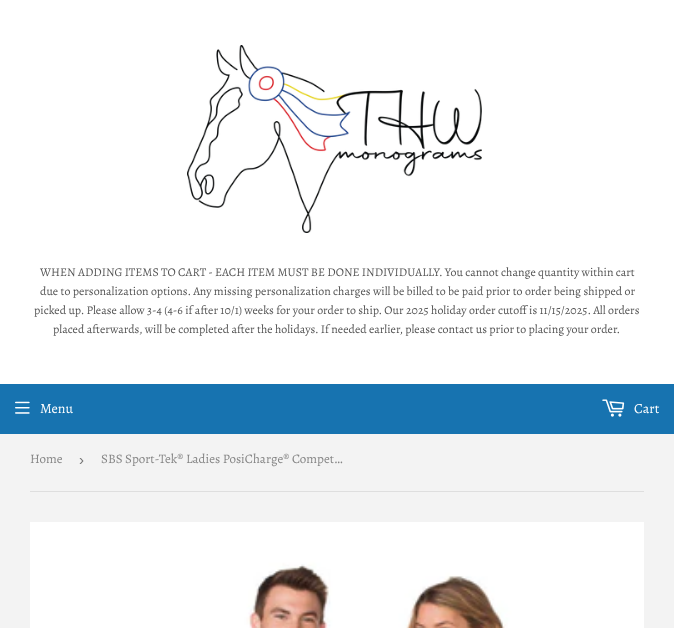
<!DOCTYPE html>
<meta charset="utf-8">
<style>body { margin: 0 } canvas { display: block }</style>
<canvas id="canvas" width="674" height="628"></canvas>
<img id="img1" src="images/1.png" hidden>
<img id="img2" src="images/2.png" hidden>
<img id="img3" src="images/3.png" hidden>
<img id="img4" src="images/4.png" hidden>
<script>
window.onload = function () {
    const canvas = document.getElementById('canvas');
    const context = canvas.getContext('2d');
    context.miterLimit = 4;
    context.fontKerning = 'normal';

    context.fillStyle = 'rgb(243, 243, 243)';
    context.fillRect(0, 0, 674, 628);
    context.fillStyle = 'rgb(255, 255, 255)';
    context.fillRect(0, 0, 674, 384);
    context.drawImage(document.getElementById('img1'), 187, 45, 295, 188);
    context.fillStyle = 'rgb(23, 115, 176)';
    context.fillRect(0, 384, 674, 50);
    context.drawImage(document.getElementById('img2'), 15, 401, 15, 13);
    context.drawImage(document.getElementById('img3'), 602, 399, 23, 18);
    context.fillStyle = 'rgb(222, 222, 222)';
    context.fillRect(30, 491, 614, 1);
    context.drawImage(document.getElementById('img4'), 30, 522, 614, 106);
    context.font = '11.9px Alegreya';
    context.fillStyle = 'rgb(84, 84, 84)';
    context.fillText('WHEN ADDING ITEMS TO CART - EACH ITEM MUST BE DONE INDIVIDUALLY. You cannot change quantity within cart', 40, 276);
    context.fillText('due to personalization options. Any missing personalization charges will be billed to be paid prior to order being shipped or', 40, 295);
    context.fillText('picked up. Please allow 3-4 (4-6 if after 10/1) weeks for your order to ship. Our 2025 holiday order cutoff is 11/15/2025. All orders', 34, 314);
    context.fillText('placed afterwards, will be completed after the holidays. If needed earlier, please contact us prior to placing your order.', 53, 333);
    context.font = '14px Alegreya';
    context.fillStyle = 'rgb(255, 255, 255)';
    context.fillText('Menu', 40, 413);
    context.fillText('Cart', 634, 413);
    context.font = '13px Alegreya';
    context.fillStyle = 'rgb(133, 133, 133)';
    context.fillText('Home', 30, 463);
    context.font = '15px Liberation Sans';
    context.fillStyle = 'rgb(118, 118, 118)';
    context.fillText('›', 79, 465);
    context.font = '13px Alegreya';
    context.fillStyle = 'rgb(133, 133, 133)';
    context.fillText('SBS Sport-Tek® Ladies PosiCharge® Compet…', 101, 463);
};
</script>
